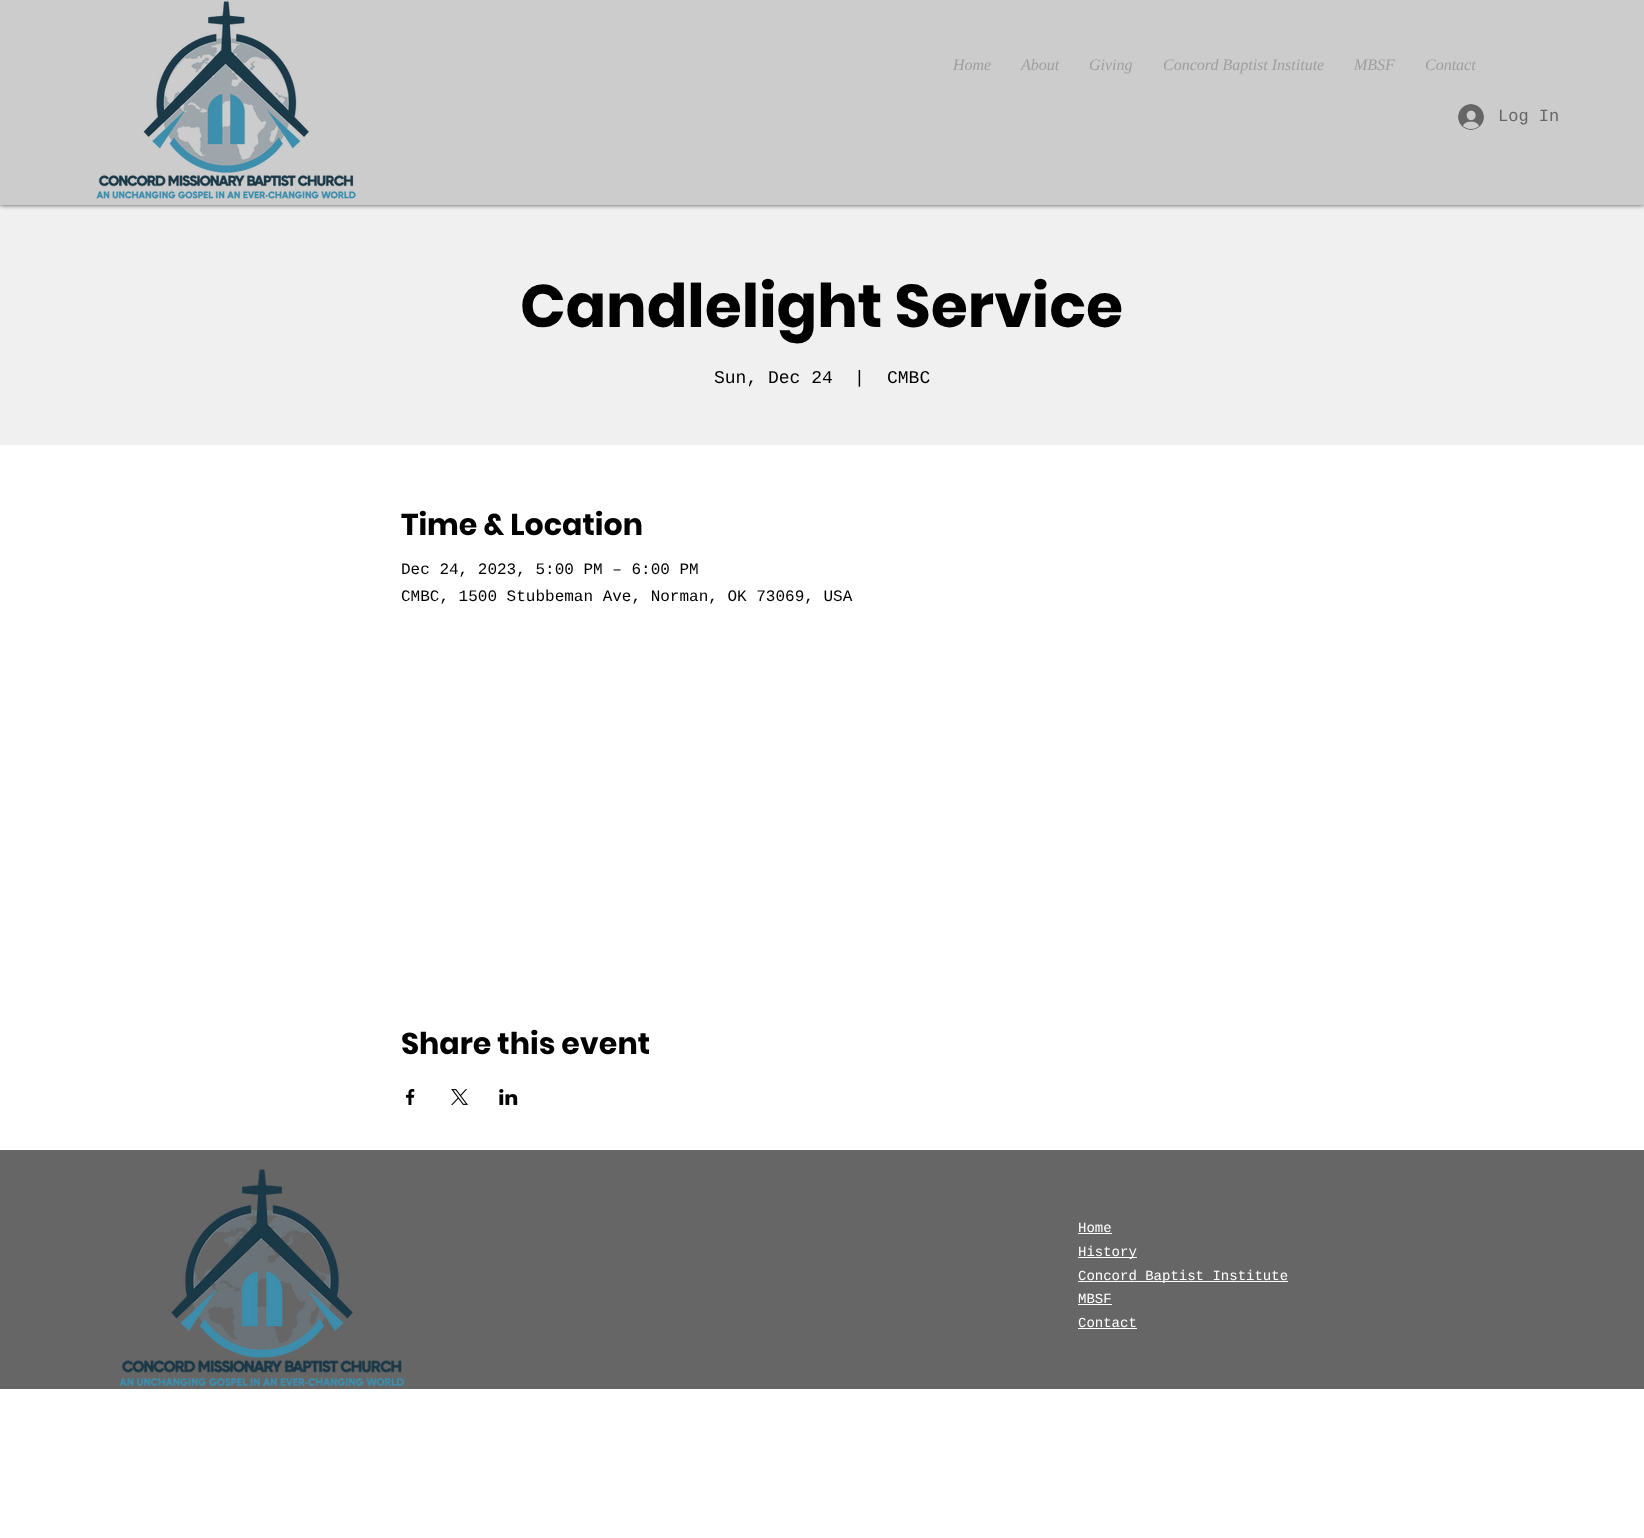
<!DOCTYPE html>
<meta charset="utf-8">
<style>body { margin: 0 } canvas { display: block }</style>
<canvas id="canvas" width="1644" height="1538"></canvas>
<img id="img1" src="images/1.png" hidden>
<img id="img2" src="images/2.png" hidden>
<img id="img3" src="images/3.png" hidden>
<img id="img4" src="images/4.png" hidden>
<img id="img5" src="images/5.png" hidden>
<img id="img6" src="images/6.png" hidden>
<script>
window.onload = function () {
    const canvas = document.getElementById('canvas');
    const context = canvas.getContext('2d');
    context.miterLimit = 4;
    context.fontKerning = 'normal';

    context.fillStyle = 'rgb(255, 255, 255)';
    context.fillRect(0, 0, 1644, 1538);
    context.fillStyle = 'rgb(240, 240, 240)';
    context.fillRect(0, 205, 1644, 240);
    context.fillStyle = 'rgba(0, 0, 0, 0.7)';
    context.filter = 'blur(2.5px)';
    context.beginPath();
    context.rect(0, 0, 1644, 205);
    context.fill();
    context.filter = 'none';
    context.fillStyle = 'rgb(204, 204, 204)';
    context.fillRect(0, 0, 1644, 205);
    context.drawImage(document.getElementById('img1'), 96, 1, 260, 198);
    context.drawImage(document.getElementById('img2'), 1458, 104, 26, 26);
    context.drawImage(document.getElementById('img3'), 406, 1089, 9, 16);
    context.drawImage(document.getElementById('img4'), 451, 1089, 17, 16);
    context.drawImage(document.getElementById('img5'), 499, 1089, 19, 16);
    context.fillStyle = 'rgb(102, 102, 102)';
    context.fillRect(0, 1150, 1644, 239);
    context.drawImage(document.getElementById('img6'), 119, 1169, 286, 217);
    context.fillStyle = 'rgb(255, 255, 255)';
    context.fillRect(1078, 1233, 34, 1);
    context.fillRect(1078, 1257, 59, 1);
    context.fillRect(1078, 1281, 210, 1);
    context.fillRect(1078, 1304, 34, 1);
    context.fillRect(1078, 1328, 59, 1);
    context.font = 'italic 16px Liberation Serif';
    context.fillStyle = 'rgb(158, 158, 158)';
    context.fillText('Home', 953, 70);
    context.fillText('About', 1021, 70);
    context.fillText('Giving', 1089, 70);
    context.fillText('Concord Baptist Institute', 1163, 70);
    context.fillText('MBSF', 1354, 70);
    context.fillText('Contact', 1425, 70);
    context.font = '17px Liberation Mono';
    context.fillStyle = 'rgb(102, 102, 102)';
    context.fillText('Log In', 1498, 121);
    context.font = 'bold 60px Poppins';
    context.fillStyle = 'rgb(0, 0, 0)';
    context.fillText('Candlelight Service', 520, 327);
    context.font = '18px Liberation Mono';
    context.fillText('Sun, Dec 24', 714, 383);
    context.fillText('|', 854, 383);
    context.fillText('CMBC', 887, 383);
    context.font = 'bold 30px Poppins';
    context.fillText('Time & Location', 401, 535);
    context.font = '16px Liberation Mono';
    context.fillText('Dec 24, 2023, 5:00 PM – 6:00 PM', 401, 574);
    context.fillText('CMBC, 1500 Stubbeman Ave, Norman, OK 73069, USA', 401, 601);
    context.font = 'bold 30px Poppins';
    context.fillText('Share this event', 401, 1054);
    context.font = '14px Liberation Mono';
    context.fillStyle = 'rgb(255, 255, 255)';
    context.fillText('Home', 1078, 1232);
    context.fillText('History', 1078, 1256);
    context.fillText('Concord Baptist Institute', 1078, 1280);
    context.fillText('MBSF', 1078, 1303);
    context.fillText('Contact', 1078, 1327);
};
</script>
